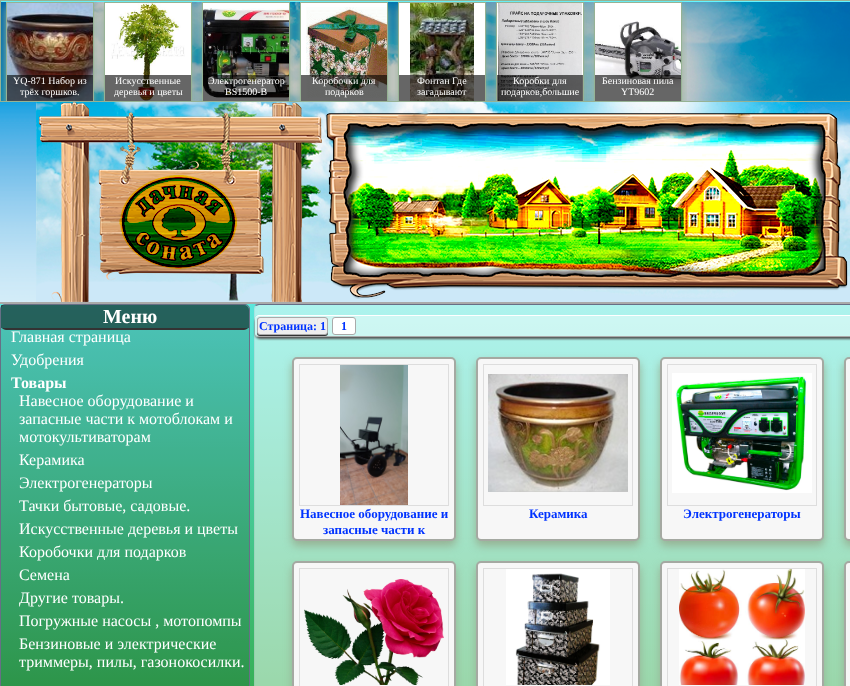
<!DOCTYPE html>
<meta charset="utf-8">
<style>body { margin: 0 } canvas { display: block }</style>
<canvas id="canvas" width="850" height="686"></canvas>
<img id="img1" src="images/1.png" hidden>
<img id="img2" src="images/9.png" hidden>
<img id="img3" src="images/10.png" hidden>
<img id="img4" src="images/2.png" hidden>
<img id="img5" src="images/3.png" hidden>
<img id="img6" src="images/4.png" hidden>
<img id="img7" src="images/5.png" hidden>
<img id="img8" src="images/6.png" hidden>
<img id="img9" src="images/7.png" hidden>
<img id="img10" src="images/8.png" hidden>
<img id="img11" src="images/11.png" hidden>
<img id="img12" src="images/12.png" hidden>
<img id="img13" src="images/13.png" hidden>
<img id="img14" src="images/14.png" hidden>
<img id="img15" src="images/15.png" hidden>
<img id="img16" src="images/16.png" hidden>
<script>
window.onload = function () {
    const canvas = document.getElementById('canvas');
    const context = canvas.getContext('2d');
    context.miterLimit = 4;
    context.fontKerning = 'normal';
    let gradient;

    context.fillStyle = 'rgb(255, 255, 255)';
    context.fillRect(0, 0, 850, 686);
    gradient = context.createLinearGradient(650, 0, 650, 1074);
    gradient.addColorStop(0.19, 'rgb(99, 245, 255)');
    gradient.addColorStop(0.82, 'rgb(36, 148, 19)');
    gradient.addColorStop(1, 'rgb(32, 71, 26)');
    context.fillStyle = gradient;
    context.fillRect(0, 1, 850, 685);
    context.drawImage(document.getElementById('img1'), 1, 2, 849, 99);
    context.strokeStyle = 'rgb(150, 178, 148)';
    context.strokeRect(0.5, 0.5, 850, 101);
    context.drawImage(document.getElementById('img2'), 0, 102, 850, 200);
    context.drawImage(document.getElementById('img3'), 39, 102, 809, 200);
    context.save();
    context.beginPath();
    context.rect(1, 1, 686, 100);
    context.clip();
    context.fillStyle = 'rgb(150, 178, 148)';
    context.filter = 'blur(4px)';
    context.beginPath();
    context.rect(6, 7, 88, 100);
    context.fill();
    context.filter = 'none';
    context.restore();
    context.save();
    context.beginPath();
    context.rect(1, 1, 686, 100);
    context.clip();
    context.strokeRect(6.5, 2.5, 87, 99);
    context.restore();
    context.drawImage(document.getElementById('img4'), 7, 3, 86, 98);
    context.save();
    context.beginPath();
    context.rect(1, 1, 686, 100);
    context.clip();
    context.fillStyle = 'rgb(150, 178, 148)';
    context.filter = 'blur(4px)';
    context.beginPath();
    context.rect(104, 7, 88, 100);
    context.fill();
    context.filter = 'none';
    context.restore();
    context.fillStyle = 'rgba(0, 0, 0, 0.6)';
    context.fillRect(7, 75, 86, 26);
    context.fillStyle = 'rgb(255, 255, 255)';
    context.fillRect(105, 3, 86, 98);
    context.save();
    context.beginPath();
    context.rect(1, 1, 686, 100);
    context.clip();
    context.strokeRect(104.5, 2.5, 87, 99);
    context.restore();
    context.drawImage(document.getElementById('img5'), 111, 3, 74, 98);
    context.save();
    context.beginPath();
    context.rect(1, 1, 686, 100);
    context.clip();
    context.fillStyle = 'rgb(150, 178, 148)';
    context.filter = 'blur(4px)';
    context.beginPath();
    context.rect(202, 7, 88, 100);
    context.fill();
    context.filter = 'none';
    context.restore();
    context.fillStyle = 'rgba(0, 0, 0, 0.6)';
    context.fillRect(105, 75, 86, 26);
    context.fillStyle = 'rgb(255, 255, 255)';
    context.fillRect(203, 3, 86, 98);
    context.save();
    context.beginPath();
    context.rect(1, 1, 686, 100);
    context.clip();
    context.strokeRect(202.5, 2.5, 87, 99);
    context.restore();
    context.drawImage(document.getElementById('img6'), 203, 8, 86, 90);
    context.save();
    context.beginPath();
    context.rect(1, 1, 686, 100);
    context.clip();
    context.fillStyle = 'rgb(150, 178, 148)';
    context.filter = 'blur(4px)';
    context.beginPath();
    context.rect(300, 7, 88, 100);
    context.fill();
    context.filter = 'none';
    context.restore();
    context.fillStyle = 'rgba(0, 0, 0, 0.6)';
    context.fillRect(203, 75, 86, 26);
    context.fillStyle = 'rgb(255, 255, 255)';
    context.fillRect(301, 3, 86, 98);
    context.save();
    context.beginPath();
    context.rect(1, 1, 686, 100);
    context.clip();
    context.strokeRect(300.5, 2.5, 87, 99);
    context.restore();
    context.drawImage(document.getElementById('img7'), 306, 7, 81, 91);
    context.save();
    context.beginPath();
    context.rect(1, 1, 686, 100);
    context.clip();
    context.fillStyle = 'rgb(150, 178, 148)';
    context.filter = 'blur(4px)';
    context.beginPath();
    context.rect(398, 7, 88, 100);
    context.fill();
    context.filter = 'none';
    context.restore();
    context.fillStyle = 'rgba(0, 0, 0, 0.6)';
    context.fillRect(301, 75, 86, 26);
    context.fillStyle = 'rgb(255, 255, 255)';
    context.fillRect(399, 3, 86, 98);
    context.save();
    context.beginPath();
    context.rect(1, 1, 686, 100);
    context.clip();
    context.strokeRect(398.5, 2.5, 87, 99);
    context.restore();
    context.drawImage(document.getElementById('img8'), 410, 3, 64, 98);
    context.save();
    context.beginPath();
    context.rect(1, 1, 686, 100);
    context.clip();
    context.fillStyle = 'rgb(150, 178, 148)';
    context.filter = 'blur(4px)';
    context.beginPath();
    context.rect(496, 7, 88, 100);
    context.fill();
    context.filter = 'none';
    context.restore();
    context.fillStyle = 'rgba(0, 0, 0, 0.6)';
    context.fillRect(399, 75, 86, 26);
    context.fillStyle = 'rgb(255, 255, 255)';
    context.fillRect(497, 3, 86, 98);
    context.save();
    context.beginPath();
    context.rect(1, 1, 686, 100);
    context.clip();
    context.strokeRect(496.5, 2.5, 87, 99);
    context.restore();
    context.drawImage(document.getElementById('img9'), 498, 3, 84, 98);
    context.save();
    context.beginPath();
    context.rect(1, 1, 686, 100);
    context.clip();
    context.fillStyle = 'rgb(150, 178, 148)';
    context.filter = 'blur(4px)';
    context.beginPath();
    context.rect(594, 7, 88, 100);
    context.fill();
    context.filter = 'none';
    context.restore();
    context.fillStyle = 'rgba(0, 0, 0, 0.6)';
    context.fillRect(497, 75, 86, 26);
    context.fillStyle = 'rgb(255, 255, 255)';
    context.fillRect(595, 3, 86, 98);
    context.save();
    context.beginPath();
    context.rect(1, 1, 686, 100);
    context.clip();
    context.strokeRect(594.5, 2.5, 87, 99);
    context.restore();
    context.drawImage(document.getElementById('img10'), 595, 21, 86, 67);
    context.fillStyle = 'rgba(0, 0, 0, 0.6)';
    context.fillRect(595, 75, 86, 26);
    context.fillStyle = 'rgb(170, 170, 170)';
    context.fillRect(0, 302, 850, 2);
    context.fillStyle = 'rgba(0, 0, 0, 0.15)';
    context.beginPath();
    context.roundRect(0.5, 304.5, 249, 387, 4.5);
    context.fill();
    context.strokeStyle = 'rgb(103, 111, 134)';
    context.stroke();
    context.save();
    context.beginPath();
    context.moveTo(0, 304);
    context.lineTo(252, 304);
    context.lineTo(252, 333);
    context.lineTo(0, 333);
    context.closePath();
    context.moveTo(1, 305);
    context.lineTo(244, 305);
    context.bezierCurveTo(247, 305, 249, 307, 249, 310);
    context.lineTo(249, 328);
    context.lineTo(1, 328);
    context.closePath();
    context.clip('evenodd');
    context.fillStyle = 'rgb(51, 51, 51)';
    context.filter = 'blur(0.5px)';
    context.beginPath();
    context.roundRect(1, 307, 248, 23, 5);
    context.fill();
    context.filter = 'none';
    context.restore();
    context.fillStyle = 'rgba(0, 0, 0, 0.5)';
    context.beginPath();
    context.roundRect(1, 305, 248, 23, [0, 5, 0, 0]);
    context.fill();
    context.fillStyle = 'rgba(255, 255, 255, 0.5)';
    context.beginPath();
    context.moveTo(259, 304);
    context.lineTo(850, 304);
    context.bezierCurveTo(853, 304, 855, 306, 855, 309);
    context.lineTo(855, 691);
    context.lineTo(254, 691);
    context.lineTo(254, 309);
    context.bezierCurveTo(254, 306, 256, 304, 259, 304);
    context.closePath();
    context.fill();
    context.fillStyle = 'rgb(103, 111, 134)';
    context.beginPath();
    context.moveTo(259, 304);
    context.bezierCurveTo(258, 304, 256, 304, 255, 305);
    context.lineTo(256, 306);
    context.lineTo(259, 305);
    context.lineTo(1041, 305);
    context.lineTo(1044, 306);
    context.lineTo(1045, 305);
    context.bezierCurveTo(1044, 304, 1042, 304, 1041, 304);
    context.closePath();
    context.fill();
    context.fillStyle = 'rgba(103, 111, 134, 0.1)';
    context.beginPath();
    context.moveTo(254, 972);
    context.lineTo(255, 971);
    context.lineTo(255, 309);
    context.lineTo(256, 306);
    context.lineTo(255, 305);
    context.bezierCurveTo(254, 306, 254, 308, 254, 309);
    context.closePath();
    context.fill();
    context.save();
    context.beginPath();
    context.moveTo(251, 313);
    context.lineTo(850, 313);
    context.lineTo(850, 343);
    context.lineTo(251, 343);
    context.closePath();
    context.moveTo(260, 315);
    context.lineTo(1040, 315);
    context.bezierCurveTo(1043, 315, 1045, 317, 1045, 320);
    context.lineTo(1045, 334);
    context.bezierCurveTo(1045, 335.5, 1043.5, 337, 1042, 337);
    context.lineTo(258, 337);
    context.bezierCurveTo(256.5, 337, 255, 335.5, 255, 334);
    context.lineTo(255, 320);
    context.bezierCurveTo(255, 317, 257, 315, 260, 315);
    context.closePath();
    context.clip('evenodd');
    context.fillStyle = 'rgb(85, 85, 85)';
    context.filter = 'blur(1px)';
    context.beginPath();
    context.roundRect(255, 317, 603, 22, 5);
    context.fill();
    context.filter = 'none';
    context.restore();
    context.fillStyle = 'rgba(255, 255, 255, 0.4)';
    context.beginPath();
    context.moveTo(260, 315);
    context.lineTo(850, 315);
    context.bezierCurveTo(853, 315, 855, 317, 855, 320);
    context.lineTo(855, 334);
    context.bezierCurveTo(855, 335.5, 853.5, 337, 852, 337);
    context.lineTo(258, 337);
    context.bezierCurveTo(256.5, 337, 255, 335.5, 255, 334);
    context.lineTo(255, 320);
    context.bezierCurveTo(255, 317, 257, 315, 260, 315);
    context.closePath();
    context.fill();
    context.fillStyle = 'rgb(255, 255, 255)';
    context.beginPath();
    context.moveTo(260, 315);
    context.bezierCurveTo(257, 315, 255, 317, 255, 320);
    context.bezierCurveTo(255, 318, 257, 316, 260, 316);
    context.lineTo(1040, 316);
    context.bezierCurveTo(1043, 316, 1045, 318, 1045, 320);
    context.bezierCurveTo(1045, 317, 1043, 315, 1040, 315);
    context.closePath();
    context.fill();
    context.fillStyle = 'rgb(170, 170, 170)';
    context.beginPath();
    context.moveTo(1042, 337);
    context.bezierCurveTo(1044, 337, 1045, 336, 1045, 334);
    context.bezierCurveTo(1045, 335, 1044, 336, 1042, 336);
    context.lineTo(258, 336);
    context.bezierCurveTo(256, 336, 255, 335, 255, 334);
    context.bezierCurveTo(255, 336, 256, 337, 258, 337);
    context.closePath();
    context.fill();
    context.fillStyle = 'rgb(51, 51, 51)';
    context.filter = 'blur(0.5px)';
    context.beginPath();
    context.roundRect(257, 318, 71, 18, 3);
    context.fill();
    context.filter = 'none';
    context.fillStyle = 'rgb(238, 238, 238)';
    context.beginPath();
    context.roundRect(257.5, 317.5, 70, 17, 2.5);
    context.fill();
    context.strokeStyle = 'rgb(170, 170, 170)';
    context.stroke();
    context.fillStyle = 'rgb(255, 255, 255)';
    context.beginPath();
    context.roundRect(332.5, 317.5, 23, 17, 2.5);
    context.fill();
    context.stroke();
    context.fillStyle = 'rgb(150, 178, 148)';
    context.filter = 'blur(4px)';
    context.beginPath();
    context.roundRect(292, 362, 164, 184, 5);
    context.fill();
    context.filter = 'none';
    context.fillStyle = 'rgb(247, 247, 247)';
    context.beginPath();
    context.roundRect(293, 358, 162, 182, 4);
    context.fill();
    context.strokeStyle = 'rgb(165, 169, 162)';
    context.lineWidth = 2;
    context.stroke();
    context.strokeStyle = 'rgb(221, 221, 221)';
    context.lineWidth = 1;
    context.strokeRect(299.5, 364.5, 149, 141);
    context.drawImage(document.getElementById('img11'), 340, 365, 68, 140);
    context.fillStyle = 'rgb(150, 178, 148)';
    context.filter = 'blur(4px)';
    context.beginPath();
    context.roundRect(476, 362, 164, 184, 5);
    context.fill();
    context.filter = 'none';
    context.fillStyle = 'rgb(247, 247, 247)';
    context.beginPath();
    context.roundRect(477, 358, 162, 182, 4);
    context.fill();
    context.strokeStyle = 'rgb(165, 169, 162)';
    context.lineWidth = 2;
    context.stroke();
    context.strokeStyle = 'rgb(221, 221, 221)';
    context.lineWidth = 1;
    context.strokeRect(483.5, 364.5, 149, 141);
    context.drawImage(document.getElementById('img12'), 488, 374, 140, 118);
    context.fillStyle = 'rgb(150, 178, 148)';
    context.filter = 'blur(4px)';
    context.beginPath();
    context.roundRect(660, 362, 164, 184, 5);
    context.fill();
    context.filter = 'none';
    context.fillStyle = 'rgb(247, 247, 247)';
    context.beginPath();
    context.roundRect(661, 358, 162, 182, 4);
    context.fill();
    context.strokeStyle = 'rgb(165, 169, 162)';
    context.lineWidth = 2;
    context.stroke();
    context.strokeStyle = 'rgb(221, 221, 221)';
    context.lineWidth = 1;
    context.strokeRect(667.5, 364.5, 149, 141);
    context.drawImage(document.getElementById('img13'), 672, 373, 140, 120);
    context.fillStyle = 'rgb(150, 178, 148)';
    context.filter = 'blur(4px)';
    context.beginPath();
    context.roundRect(844, 362, 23, 184, 5);
    context.fill();
    context.filter = 'none';
    context.fillStyle = 'rgb(247, 247, 247)';
    context.beginPath();
    context.roundRect(845, 358, 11, 182, 4);
    context.fill();
    context.strokeStyle = 'rgb(165, 169, 162)';
    context.lineWidth = 2;
    context.stroke();
    context.fillStyle = 'rgb(150, 178, 148)';
    context.filter = 'blur(4px)';
    context.beginPath();
    context.roundRect(292, 566, 164, 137, 5);
    context.fill();
    context.filter = 'none';
    context.fillStyle = 'rgb(247, 247, 247)';
    context.beginPath();
    context.roundRect(293, 562, 162, 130, 4);
    context.fill();
    context.stroke();
    context.strokeStyle = 'rgb(221, 221, 221)';
    context.lineWidth = 1;
    context.strokeRect(299.5, 568.5, 149, 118);
    context.drawImage(document.getElementById('img14'), 304, 579, 140, 106);
    context.fillStyle = 'rgb(150, 178, 148)';
    context.filter = 'blur(4px)';
    context.beginPath();
    context.roundRect(476, 566, 164, 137, 5);
    context.fill();
    context.filter = 'none';
    context.fillStyle = 'rgb(247, 247, 247)';
    context.beginPath();
    context.roundRect(477, 562, 162, 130, 4);
    context.fill();
    context.strokeStyle = 'rgb(165, 169, 162)';
    context.lineWidth = 2;
    context.stroke();
    context.strokeStyle = 'rgb(221, 221, 221)';
    context.lineWidth = 1;
    context.strokeRect(483.5, 568.5, 149, 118);
    context.drawImage(document.getElementById('img15'), 506, 569, 104, 116);
    context.fillStyle = 'rgb(150, 178, 148)';
    context.filter = 'blur(4px)';
    context.beginPath();
    context.roundRect(660, 566, 164, 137, 5);
    context.fill();
    context.filter = 'none';
    context.fillStyle = 'rgb(247, 247, 247)';
    context.beginPath();
    context.roundRect(661, 562, 162, 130, 4);
    context.fill();
    context.strokeStyle = 'rgb(165, 169, 162)';
    context.lineWidth = 2;
    context.stroke();
    context.strokeStyle = 'rgb(221, 221, 221)';
    context.lineWidth = 1;
    context.strokeRect(667.5, 568.5, 149, 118);
    context.drawImage(document.getElementById('img16'), 679, 569, 126, 116);
    context.fillStyle = 'rgb(150, 178, 148)';
    context.filter = 'blur(4px)';
    context.beginPath();
    context.roundRect(844, 566, 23, 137, 5);
    context.fill();
    context.filter = 'none';
    context.fillStyle = 'rgb(247, 247, 247)';
    context.beginPath();
    context.roundRect(845, 562, 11, 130, 4);
    context.fill();
    context.strokeStyle = 'rgb(165, 169, 162)';
    context.lineWidth = 2;
    context.stroke();
    context.font = '10px Liberation Serif';
    context.fillStyle = 'rgb(255, 255, 255)';
    context.fillText('YQ-871 Набор из', 13, 84);
    context.fillText('трёх горшков.', 20, 95);
    context.fillText('Искусственные', 115, 84);
    context.fillText('деревья и цветы', 114, 95);
    context.fillText('Электрогенератор', 208, 84);
    context.fillText('BS1500-B', 225, 95);
    context.fillText('Коробочки для', 312, 84);
    context.fillText('подарков', 325, 95);
    context.fillText('Фонтан Где', 417, 84);
    context.fillText('загадывают', 417, 95);
    context.fillText('Коробки для', 513, 84);
    context.fillText('подарков,большие', 501, 95);
    context.fillText('Бензиновая пила', 602, 84);
    context.fillText('YT9602', 621, 95);
    context.font = 'bold 20px Liberation Serif';
    context.fillText('Меню', 103, 323);
    context.font = '16px Liberation Serif';
    context.fillText('Главная страница', 11, 342);
    context.fillText('Удобрения', 11, 365);
    context.font = 'bold 16px Liberation Serif';
    context.fillText('Товары', 11, 388);
    context.font = '16px Liberation Serif';
    context.fillText('Навесное оборудование и', 19, 406);
    context.fillText('запасные части к мотоблокам и', 19, 424);
    context.fillText('мотокультиваторам', 19, 442);
    context.fillText('Керамика', 19, 465);
    context.fillText('Электрогенераторы', 19, 488);
    context.fillText('Тачки бытовые, садовые.', 19, 511);
    context.fillText('Искусственные деревья и цветы', 19, 534);
    context.fillText('Коробочки для подарков', 19, 557);
    context.fillText('Семена', 19, 580);
    context.fillText('Другие товары.', 19, 603);
    context.fillText('Погружные насосы , мотопомпы', 19, 626);
    context.fillText('Бензиновые и электрические', 19, 649);
    context.fillText('триммеры, пилы, газонокосилки.', 19, 667);
    context.font = 'bold 12px Liberation Serif';
    context.fillStyle = 'rgb(0, 51, 255)';
    context.fillText('Страница: 1', 259, 330);
    context.fillText('1', 341, 330);
    context.font = 'bold 13px Liberation Serif';
    context.fillText('Навесное оборудование и', 300, 518);
    context.fillText('запасные части к', 323, 534);
    context.fillText('Керамика', 529, 518);
    context.fillText('Электрогенераторы', 683, 518);
};
</script>
